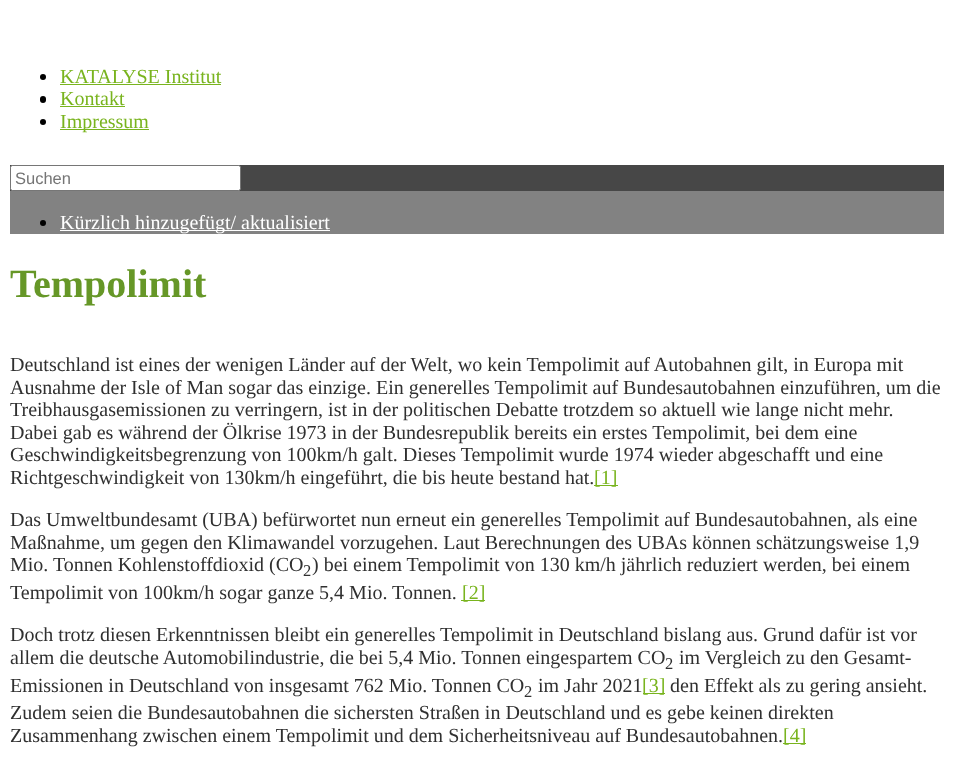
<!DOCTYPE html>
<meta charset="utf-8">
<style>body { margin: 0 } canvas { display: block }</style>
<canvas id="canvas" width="953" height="772"></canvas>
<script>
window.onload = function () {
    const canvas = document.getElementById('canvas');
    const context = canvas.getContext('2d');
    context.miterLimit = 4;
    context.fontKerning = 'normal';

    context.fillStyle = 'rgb(255, 255, 255)';
    context.fillRect(0, 0, 953, 772);
    context.fillStyle = 'rgb(0, 0, 0)';
    context.beginPath();
    context.arc(43, 77, 3, 0, 2 * Math.PI);
    context.fill();
    context.fillStyle = 'rgb(121, 180, 30)';
    context.fillRect(60, 84, 161, 1);
    context.fillStyle = 'rgb(0, 0, 0)';
    context.beginPath();
    context.roundRect(40, 96, 6, 7, 3);
    context.fill();
    context.fillStyle = 'rgb(121, 180, 30)';
    context.fillRect(60, 106, 65, 1);
    context.fillStyle = 'rgb(0, 0, 0)';
    context.beginPath();
    context.arc(43, 122, 3, 0, 2 * Math.PI);
    context.fill();
    context.fillStyle = 'rgb(121, 180, 30)';
    context.fillRect(60, 129, 89, 1);
    context.fillStyle = 'rgb(130, 130, 130)';
    context.fillRect(10, 191, 934, 43);
    context.fillStyle = 'rgb(71, 71, 71)';
    context.fillRect(10, 165, 934, 26);
    context.fillStyle = 'rgb(255, 255, 255)';
    context.beginPath();
    context.roundRect(10.5, 165.5, 230, 25, 2);
    context.fill();
    context.strokeStyle = 'rgb(118, 118, 118)';
    context.stroke();
    context.fillStyle = 'rgb(0, 0, 0)';
    context.beginPath();
    context.arc(43, 223, 3, 0, 2 * Math.PI);
    context.fill();
    context.fillStyle = 'rgb(255, 255, 255)';
    context.fillRect(60, 230, 270, 1);
    context.fillStyle = 'rgb(121, 180, 30)';
    context.fillRect(594, 485, 24, 1);
    context.fillRect(461, 600, 24, 1);
    context.fillRect(643, 693, 22, 1);
    context.fillRect(783, 743, 23, 1);
    context.font = '20px Liberation Serif';
    context.fillText('KATALYSE Institut', 60, 83);
    context.fillText('Kontakt', 60, 105);
    context.fillText('Impressum', 60, 128);
    context.font = '16.5px Liberation Sans';
    context.fillStyle = 'rgb(117, 117, 117)';
    context.fillText('Suchen', 15, 184);
    context.font = '20px Liberation Serif';
    context.fillStyle = 'rgb(255, 255, 255)';
    context.fillText('Kürzlich hinzugefügt/ aktualisiert', 60, 229);
    context.font = 'bold 40px Liberation Serif';
    context.fillStyle = 'rgb(102, 151, 39)';
    context.fillText('Tempolimit', 10, 297);
    context.font = '20px Liberation Serif';
    context.fillStyle = 'rgb(48, 48, 48)';
    context.fillText('Deutschland ist eines der wenigen Länder auf der Welt, wo kein Tempolimit auf Autobahnen gilt, in Europa mit', 10, 371);
    context.fillText('Ausnahme der Isle of Man sogar das einzige. Ein generelles Tempolimit auf Bundesautobahnen einzuführen, um die', 10, 394);
    context.fillText('Treibhausgasemissionen zu verringern, ist in der politischen Debatte trotzdem so aktuell wie lange nicht mehr.', 10, 416);
    context.fillText('Dabei gab es während der Ölkrise 1973 in der Bundesrepublik bereits ein erstes Tempolimit, bei dem eine', 10, 439);
    context.fillText('Geschwindigkeitsbegrenzung von 100km/h galt. Dieses Tempolimit wurde 1974 wieder abgeschafft und eine', 10, 461);
    context.fillText('Richtgeschwindigkeit von 130km/h eingeführt, die bis heute bestand hat.', 10, 484);
    context.fillStyle = 'rgb(121, 180, 30)';
    context.fillText('[1]', 594, 484);
    context.fillStyle = 'rgb(48, 48, 48)';
    context.fillText('Das Umweltbundesamt (UBA) befürwortet nun erneut ein generelles Tempolimit auf Bundesautobahnen, als eine', 10, 526);
    context.fillText('Maßnahme, um gegen den Klimawandel vorzugehen. Laut Berechnungen des UBAs können schätzungsweise 1,9', 10, 549);
    context.fillText('Mio. Tonnen Kohlenstoffdioxid (CO', 10, 571);
    context.font = '16.5px Liberation Serif';
    context.fillText('2', 303, 576);
    context.font = '20px Liberation Serif';
    context.fillText(') bei einem Tempolimit von 130 km/h jährlich reduziert werden, bei einem', 312, 571);
    context.fillText('Tempolimit von 100km/h sogar ganze 5,4 Mio. Tonnen.', 10, 599);
    context.fillStyle = 'rgb(121, 180, 30)';
    context.fillText('[2]', 462, 599);
    context.fillStyle = 'rgb(48, 48, 48)';
    context.fillText('Doch trotz diesen Erkenntnissen bleibt ein generelles Tempolimit in Deutschland bislang aus. Grund dafür ist vor', 10, 641);
    context.fillText('allem die deutsche Automobilindustrie, die bei 5,4 Mio. Tonnen eingespartem CO', 10, 664);
    context.font = '16.5px Liberation Serif';
    context.fillText('2', 665, 669);
    context.font = '20px Liberation Serif';
    context.fillText('im Vergleich zu den Gesamt-', 679, 664);
    context.fillText('Emissionen in Deutschland von insgesamt 762 Mio. Tonnen CO', 10, 692);
    context.font = '16.5px Liberation Serif';
    context.fillText('2', 524, 697);
    context.font = '20px Liberation Serif';
    context.fillText('im Jahr 2021', 538, 692);
    context.fillStyle = 'rgb(121, 180, 30)';
    context.fillText('[3]', 642, 692);
    context.fillStyle = 'rgb(48, 48, 48)';
    context.fillText('den Effekt als zu gering ansieht.', 670, 692);
    context.fillText('Zudem seien die Bundesautobahnen die sichersten Straßen in Deutschland und es gebe keinen direkten', 10, 719);
    context.fillText('Zusammenhang zwischen einem Tempolimit und dem Sicherheitsniveau auf Bundesautobahnen.', 10, 742);
    context.fillStyle = 'rgb(121, 180, 30)';
    context.fillText('[4]', 783, 742);
};
</script>
